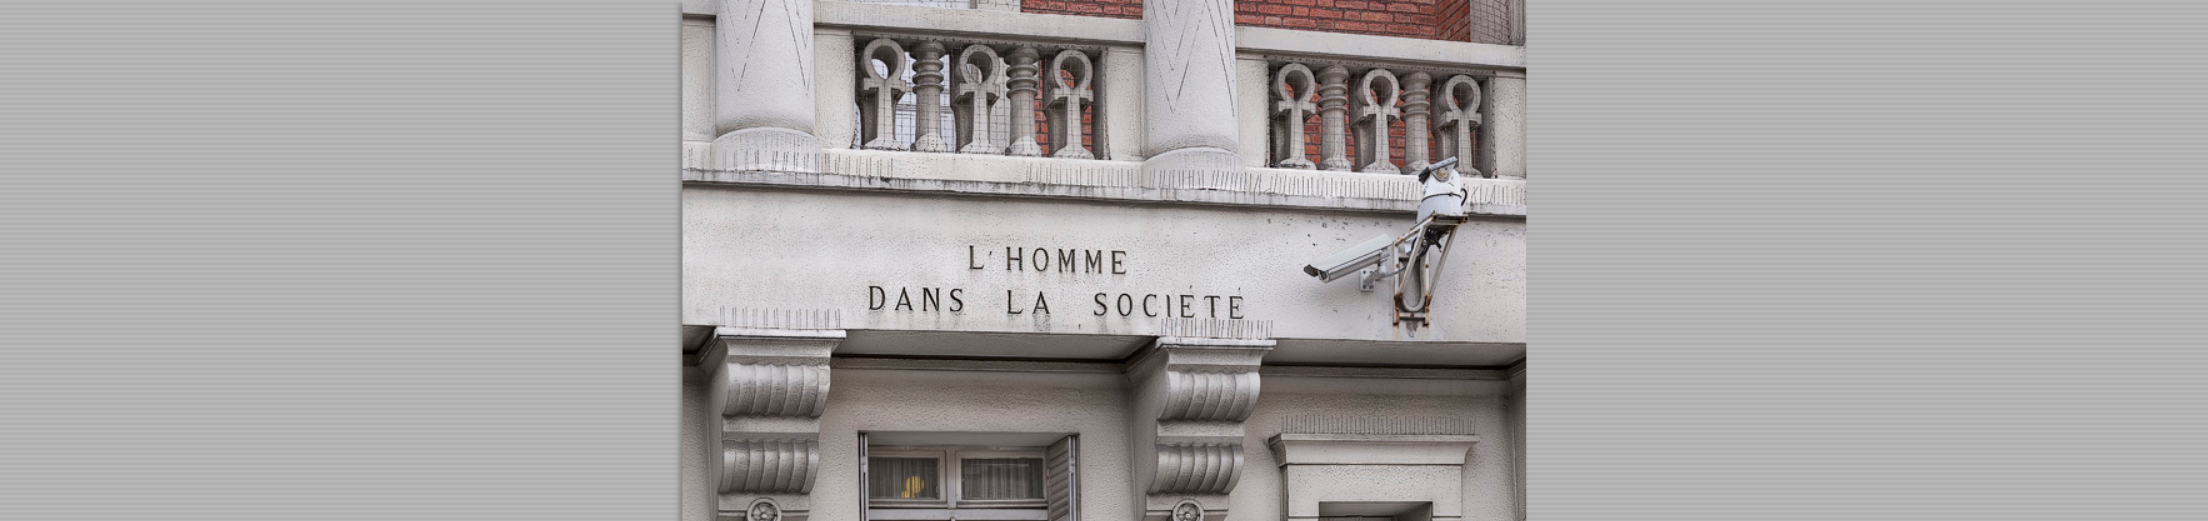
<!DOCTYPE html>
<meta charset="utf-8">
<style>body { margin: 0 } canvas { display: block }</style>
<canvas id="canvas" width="2208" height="521"></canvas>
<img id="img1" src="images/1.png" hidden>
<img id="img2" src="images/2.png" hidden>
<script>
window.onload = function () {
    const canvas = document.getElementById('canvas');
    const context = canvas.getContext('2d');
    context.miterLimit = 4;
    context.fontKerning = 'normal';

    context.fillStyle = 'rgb(255, 255, 255)';
    context.fillRect(0, 0, 2208, 521);
    context.drawImage(document.getElementById('img1'), 0, 0, 2208, 521);
    context.fillStyle = 'rgb(130, 130, 130)';
    context.filter = 'blur(2.5px)';
    context.beginPath();
    context.rect(679, 4, 844, 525);
    context.fill();
    context.filter = 'none';
    context.drawImage(document.getElementById('img2'), 682, 0, 845, 521);
};
</script>
